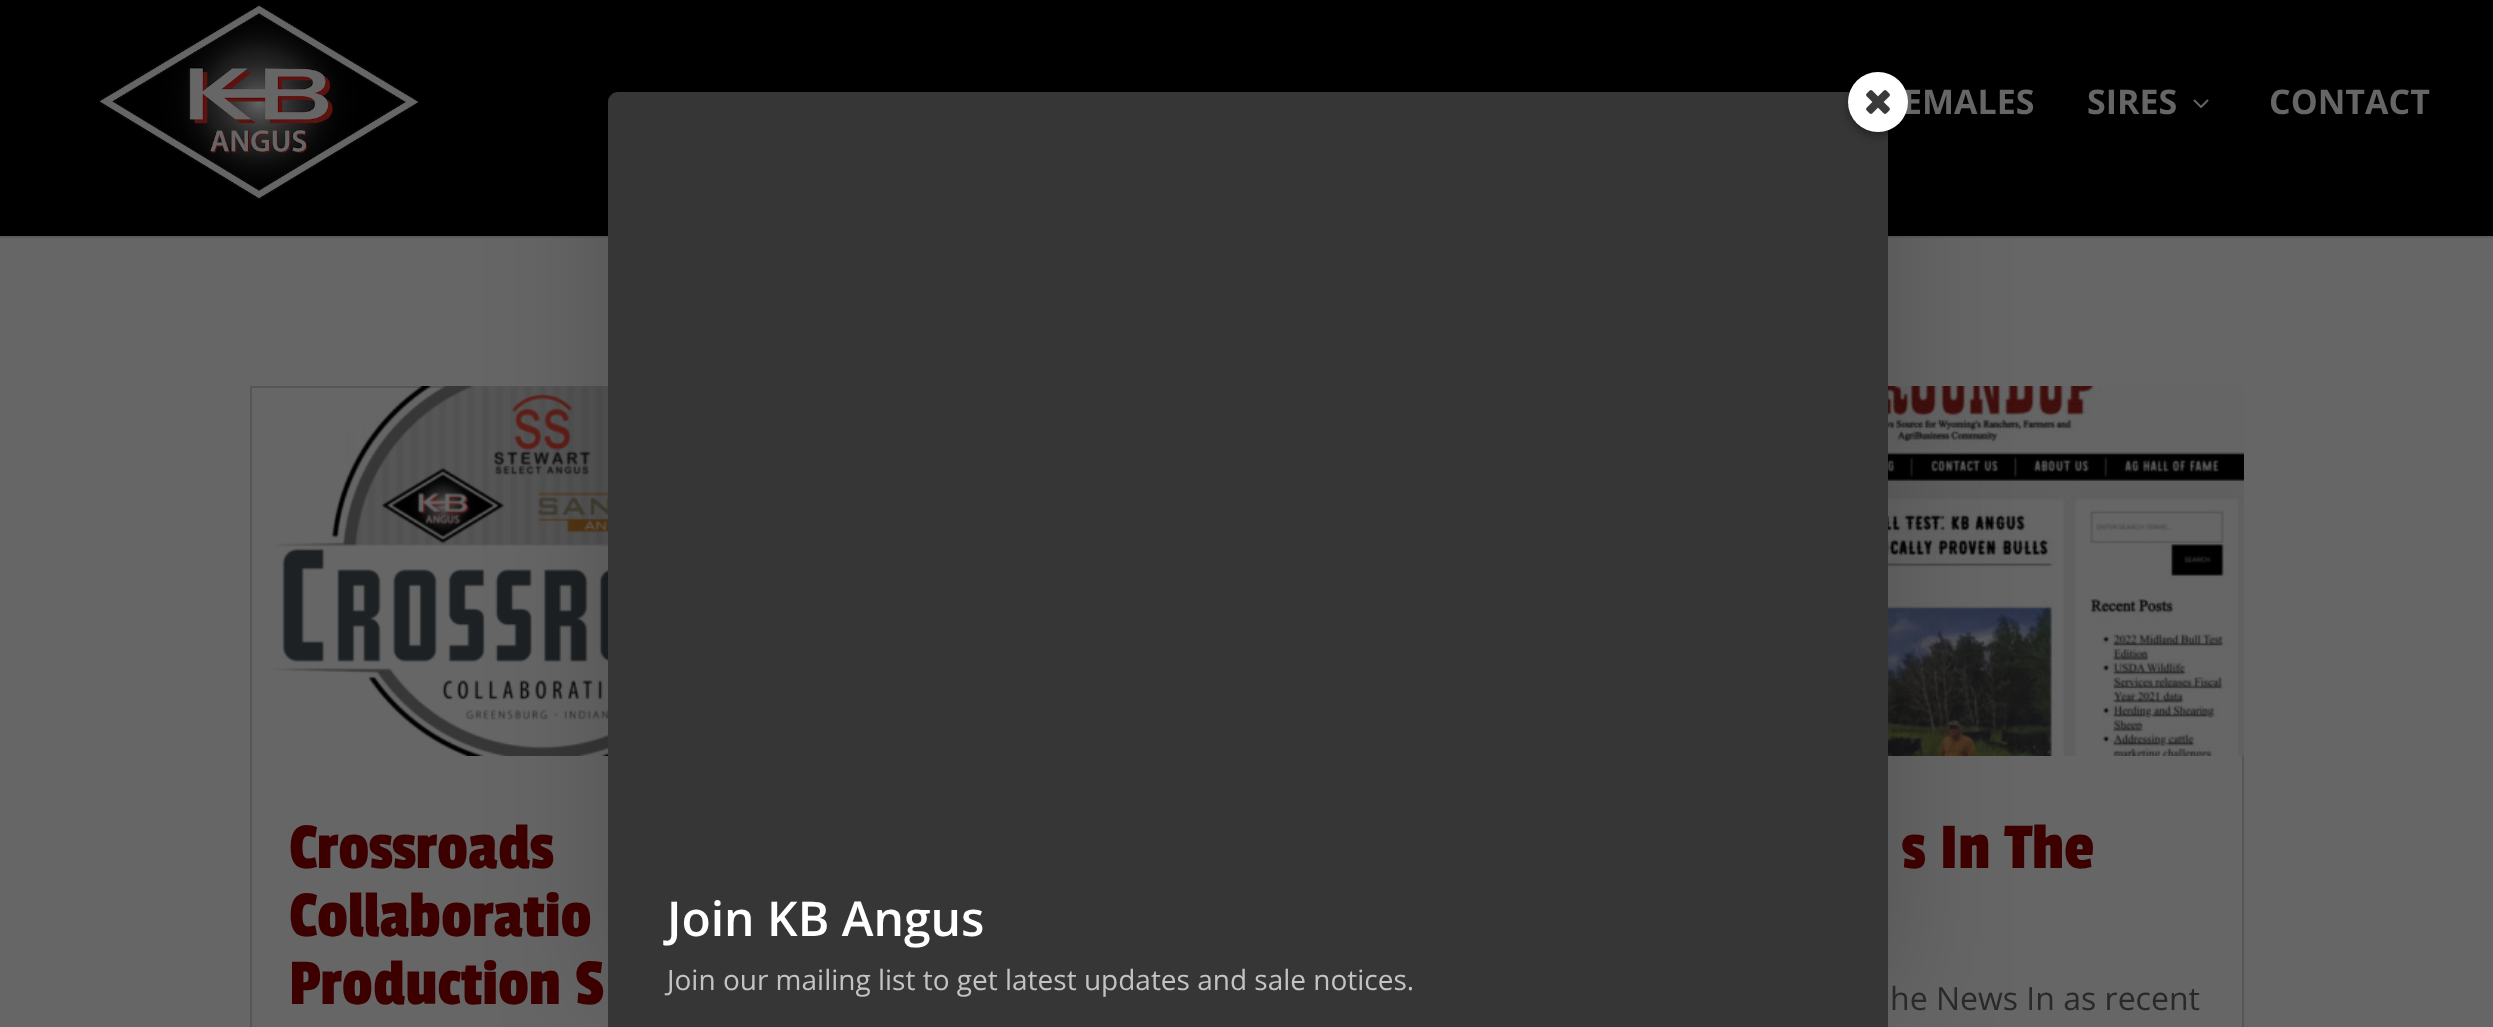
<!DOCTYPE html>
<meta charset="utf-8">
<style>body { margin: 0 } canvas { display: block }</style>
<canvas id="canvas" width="2493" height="1027"></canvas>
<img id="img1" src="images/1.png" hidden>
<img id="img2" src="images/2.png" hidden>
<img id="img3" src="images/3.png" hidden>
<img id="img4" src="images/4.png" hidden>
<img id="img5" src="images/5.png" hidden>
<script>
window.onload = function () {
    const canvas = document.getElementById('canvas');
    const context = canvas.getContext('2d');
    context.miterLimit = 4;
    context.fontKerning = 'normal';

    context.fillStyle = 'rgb(102, 102, 102)';
    context.fillRect(0, 0, 2493, 1027);
    context.fillStyle = 'rgb(92, 92, 92)';
    context.fillRect(0, 236, 2493, 2);
    context.fillStyle = 'rgb(0, 0, 0)';
    context.fillRect(0, 0, 2493, 236);
    context.drawImage(document.getElementById('img1'), 98, 4, 322, 196);
    context.drawImage(document.getElementById('img2'), 2193, 99, 16, 9);
    context.strokeStyle = 'rgb(86, 86, 86)';
    context.lineWidth = 2;
    context.strokeRect(251, 387, 590, 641);
    context.drawImage(document.getElementById('img3'), 274, 386, 334, 370);
    context.strokeRect(1653, 387, 590, 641);
    context.drawImage(document.getElementById('img4'), 1888, 386, 356, 370);
    context.fillStyle = 'rgba(0, 0, 0, 0.2)';
    context.filter = 'blur(60px)';
    context.beginPath();
    context.roundRect(608, 92, 1280, 908, 10);
    context.fill();
    context.filter = 'none';
    context.fillStyle = 'rgb(54, 54, 54)';
    context.beginPath();
    context.moveTo(618, 92);
    context.lineTo(1878, 92);
    context.bezierCurveTo(1883.5, 92, 1888, 96.5, 1888, 102);
    context.lineTo(1888, 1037);
    context.lineTo(608, 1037);
    context.lineTo(608, 102);
    context.bezierCurveTo(608, 96.5, 612.5, 92, 618, 92);
    context.closePath();
    context.fill();
    context.fillStyle = 'rgba(0, 0, 0, 0.34)';
    context.filter = 'blur(4px)';
    context.beginPath();
    context.roundRect(1848, 76, 60, 60, 30);
    context.fill();
    context.filter = 'none';
    context.font = 'bold 34px Open Sans';
    context.fillStyle = 'rgb(102, 102, 102)';
    context.fillText('EMALES', 1903, 114);
    context.fillText('SIRES', 2087, 114);
    context.fillText('CONTACT', 2269, 114);
    context.font = '68px Passion One';
    context.fillStyle = 'rgb(61, 0, 0)';
    context.fillText('Crossroads', 289, 868);
    context.fillText('Collaboratio', 289, 936);
    context.fillText('Production S', 289, 1004);
    context.fillText('s In The', 1902, 868);
    context.font = '32px Open Sans';
    context.fillStyle = 'rgb(41, 41, 41)';
    context.fillText('he News In as recent', 1890, 1010);
    context.fillStyle = 'rgb(255, 255, 255)';
    context.beginPath();
    context.arc(1878, 102, 30, 0, 2 * Math.PI);
    context.fill();
    context.drawImage(document.getElementById('img5'), 1866, 90, 24, 24);
    context.font = '600 48px Open Sans';
    context.fillText('Join KB Angus', 667, 936);
    context.font = '28px Open Sans';
    context.fillStyle = 'rgb(195, 195, 195)';
    context.fillText('Join our mailing list to get latest updates and sale notices.', 667, 990);
};
</script>
